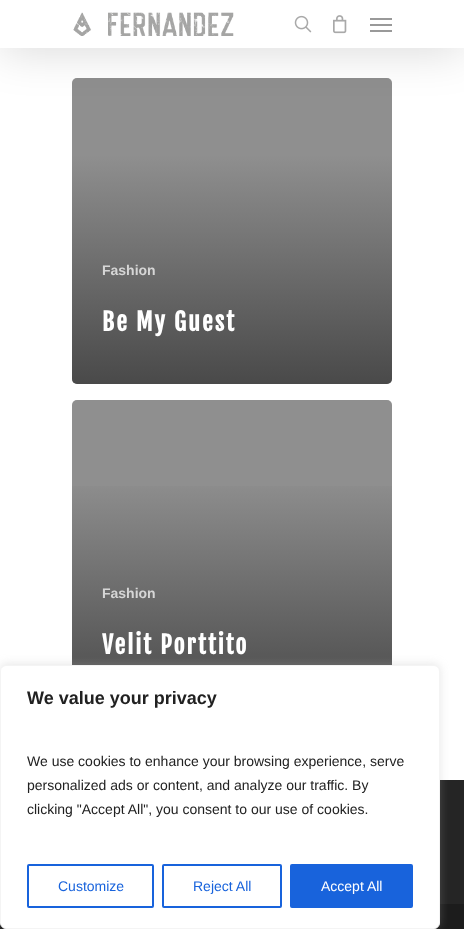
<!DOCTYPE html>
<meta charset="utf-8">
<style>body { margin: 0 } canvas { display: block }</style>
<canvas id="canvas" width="464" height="929"></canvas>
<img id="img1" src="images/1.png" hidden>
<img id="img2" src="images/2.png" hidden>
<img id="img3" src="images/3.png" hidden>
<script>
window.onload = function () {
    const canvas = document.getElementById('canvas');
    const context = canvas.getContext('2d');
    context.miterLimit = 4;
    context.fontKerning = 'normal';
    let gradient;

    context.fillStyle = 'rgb(255, 255, 255)';
    context.fillRect(0, 0, 464, 929);
    context.fillStyle = 'rgb(179, 179, 179)';
    context.beginPath();
    context.roundRect(72, 78, 320, 306, 5);
    context.fill();
    context.fillStyle = 'rgba(0, 0, 0, 0.2)';
    context.beginPath();
    context.roundRect(72, 78, 320, 306, 5);
    context.fill();
    context.fillStyle = 'rgba(0, 0, 0, 0.15)';
    context.filter = 'blur(22.5px)';
    context.beginPath();
    context.rect(0, 3, 464, 48);
    context.fill();
    context.filter = 'none';
    context.fillStyle = 'rgb(255, 255, 255)';
    context.fillRect(0, 0, 464, 48);
    context.drawImage(document.getElementById('img1'), 73, 12, 161, 24);
    context.drawImage(document.getElementById('img2'), 294, 15, 18, 18);
    context.drawImage(document.getElementById('img3'), 333, 15, 14, 19);
    context.fillStyle = 'rgb(153, 153, 153)';
    context.fillRect(370, 18, 22, 2);
    context.fillRect(370, 30, 22, 2);
    context.fillRect(370, 24, 22, 2);
    gradient = context.createLinearGradient(233, 155, 233, 386);
    gradient.addColorStop(0, 'rgba(35, 35, 35, 0)');
    gradient.addColorStop(1, 'rgba(35, 35, 35, 0.65)');
    context.fillStyle = gradient;
    context.beginPath();
    context.roundRect(72, 155, 320, 229, [0, 0, 5, 5]);
    context.fill();
    context.fillStyle = 'rgb(179, 179, 179)';
    context.beginPath();
    context.roundRect(72, 400, 320, 307, 5);
    context.fill();
    context.fillStyle = 'rgba(0, 0, 0, 0.2)';
    context.beginPath();
    context.roundRect(72, 400, 320, 307, 5);
    context.fill();
    gradient = context.createLinearGradient(233, 477, 233, 708);
    gradient.addColorStop(0, 'rgba(35, 35, 35, 0)');
    gradient.addColorStop(1, 'rgba(35, 35, 35, 0.65)');
    context.fillStyle = gradient;
    context.fillRect(72, 486, 320, 179);
    context.fillStyle = 'rgb(37, 37, 37)';
    context.fillRect(440, 780, 24, 124);
    context.fillStyle = 'rgb(28, 28, 28)';
    context.fillRect(0, 904, 464, 25);
    context.fillStyle = 'rgba(172, 171, 171, 0.3)';
    context.filter = 'blur(5px)';
    context.beginPath();
    context.roundRect(0, 664, 440, 264, 6);
    context.fill();
    context.filter = 'none';
    context.fillStyle = 'rgb(255, 255, 255)';
    context.beginPath();
    context.roundRect(0.5, 665.5, 439, 263, 5.5);
    context.fill();
    context.strokeStyle = 'rgb(244, 244, 244)';
    context.stroke();
    context.beginPath();
    context.roundRect(28, 865, 125, 42, 1);
    context.strokeStyle = 'rgb(24, 99, 220)';
    context.lineWidth = 2;
    context.stroke();
    context.beginPath();
    context.roundRect(163, 865, 118, 42, 1);
    context.stroke();
    context.fillStyle = 'rgb(24, 99, 220)';
    context.beginPath();
    context.roundRect(291, 865, 121, 42, 1);
    context.fill();
    context.stroke();
    context.font = 'bold 14px Liberation Sans';
    context.fillStyle = 'rgb(214, 214, 214)';
    context.fillText('Fashion', 102, 275);
    context.letterSpacing = '2px';
    context.font = 'bold 24px Fjalla One';
    context.fillStyle = 'rgb(255, 255, 255)';
    context.fillText('Be My Guest', 102, 331);
    context.letterSpacing = '0px';
    context.font = 'bold 14px Liberation Sans';
    context.fillStyle = 'rgb(214, 214, 214)';
    context.fillText('Fashion', 102, 598);
    context.letterSpacing = '2px';
    context.font = 'bold 24px Fjalla One';
    context.fillStyle = 'rgb(255, 255, 255)';
    context.fillText('Velit Porttito', 102, 654);
    context.letterSpacing = '0px';
    context.font = 'bold 18px Liberation Sans';
    context.fillStyle = 'rgb(33, 33, 33)';
    context.fillText('We value your privacy', 27, 704);
    context.font = '14px Liberation Sans';
    context.fillText('We use cookies to enhance your browsing experience, serve', 27, 766);
    context.fillText('personalized ads or content, and analyze our traffic. By', 27, 790);
    context.fillText('clicking "Accept All", you consent to our use of cookies.', 27, 814);
    context.fillStyle = 'rgb(24, 99, 220)';
    context.fillText('Customize', 58, 891);
    context.fillText('Reject All', 193, 891);
    context.fillStyle = 'rgb(255, 255, 255)';
    context.fillText('Accept All', 321, 891);
};
</script>
